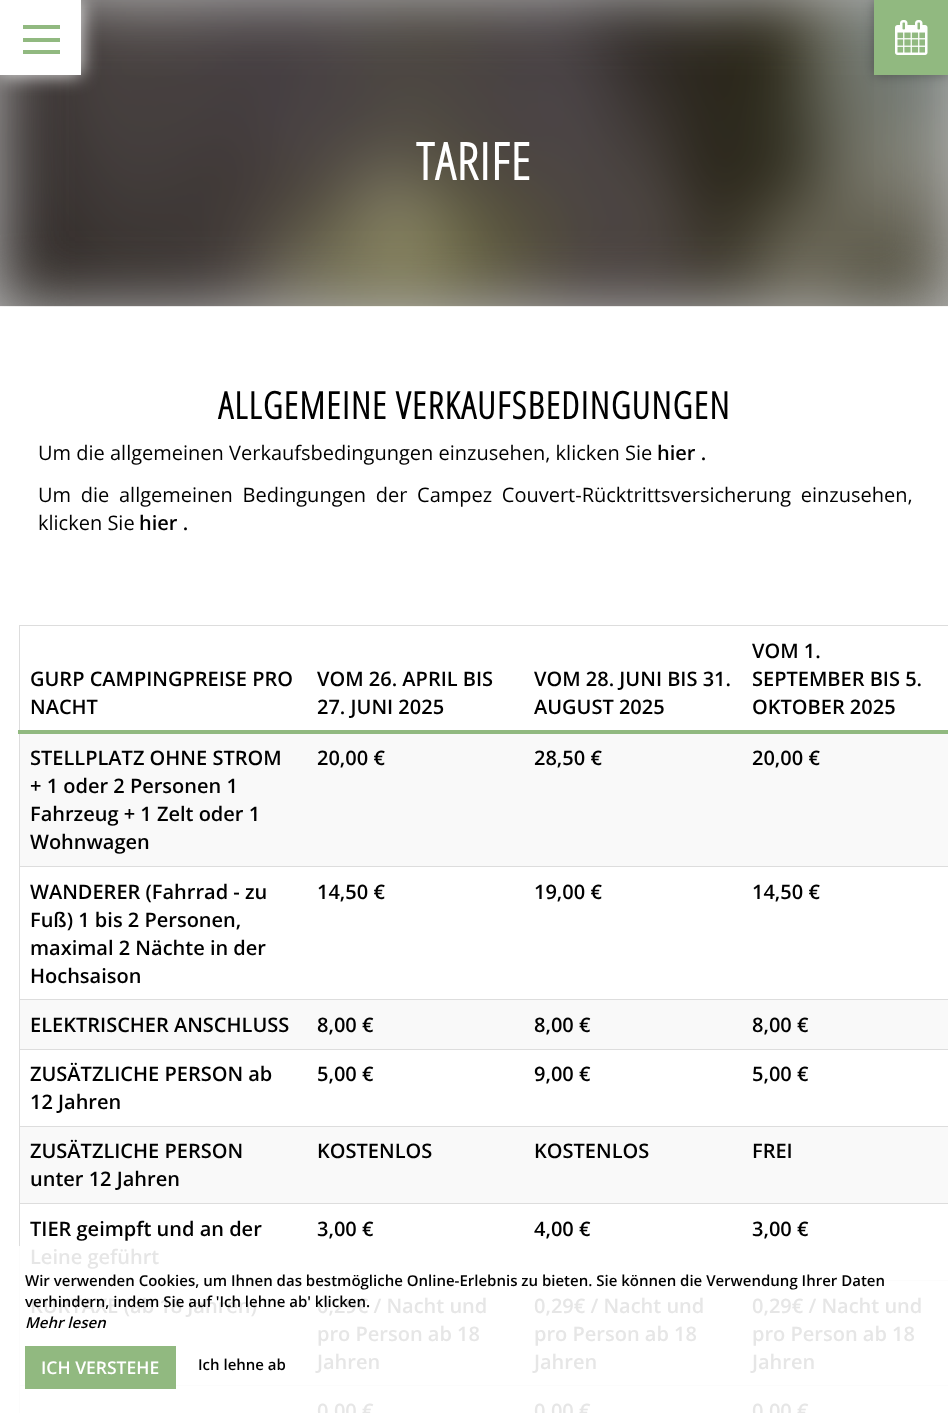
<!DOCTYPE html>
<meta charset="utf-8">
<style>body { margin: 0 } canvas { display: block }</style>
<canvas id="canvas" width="948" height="1413"></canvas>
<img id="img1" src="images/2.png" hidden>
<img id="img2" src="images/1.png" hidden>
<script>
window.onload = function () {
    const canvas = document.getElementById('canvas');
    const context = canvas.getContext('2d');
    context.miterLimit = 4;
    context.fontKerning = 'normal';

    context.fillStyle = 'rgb(255, 255, 255)';
    context.fillRect(0, 0, 948, 1413);
    context.fillStyle = 'rgb(185, 185, 185)';
    context.fillRect(0, 0, 948, 306);
    context.save();
    context.beginPath();
    context.rect(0, 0, 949, 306);
    context.clip();
    context.fillStyle = 'rgb(173, 173, 173)';
    context.filter = 'blur(31px)';
    context.beginPath();
    context.rect(0, 0, 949, 306);
    context.fill();
    context.filter = 'none';
    context.restore();
    context.drawImage(document.getElementById('img1'), 0, 0, 948, 307);
    context.fillStyle = 'rgba(255, 255, 255, 0.9)';
    context.filter = 'blur(9.5px)';
    context.beginPath();
    context.rect(0, 0, 81, 75);
    context.fill();
    context.filter = 'none';
    context.fillStyle = 'rgb(255, 255, 255)';
    context.fillRect(0, 0, 81, 75);
    context.fillStyle = 'rgb(145, 185, 128)';
    context.fillRect(23, 25, 37, 4);
    context.fillRect(23, 38, 37, 4);
    context.fillRect(23, 50, 37, 4);
    context.fillStyle = 'rgba(0, 0, 0, 0.3)';
    context.filter = 'blur(6px)';
    context.beginPath();
    context.rect(874, 0, 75, 75);
    context.fill();
    context.filter = 'none';
    context.fillStyle = 'rgb(145, 185, 128)';
    context.fillRect(874, 0, 74, 75);
    context.drawImage(document.getElementById('img2'), 895, 20, 33, 35);
    context.fillStyle = 'rgb(221, 221, 221)';
    context.fillRect(19, 625, 929, 1);
    context.fillRect(19, 625, 1, 621);
    context.fillStyle = 'rgb(252, 252, 252)';
    context.fillRect(19, 1246, 1, 167);
    context.fillStyle = 'rgb(145, 185, 128)';
    context.fillRect(18, 730, 930, 4);
    context.fillStyle = 'rgb(249, 249, 249)';
    context.fillRect(20, 734, 928, 132);
    context.fillStyle = 'rgb(221, 221, 221)';
    context.fillRect(19, 866, 929, 1);
    context.fillStyle = 'rgb(249, 249, 249)';
    context.fillRect(20, 1000, 928, 49);
    context.fillStyle = 'rgb(221, 221, 221)';
    context.fillRect(19, 999, 929, 1);
    context.fillRect(19, 1049, 929, 1);
    context.fillStyle = 'rgb(249, 249, 249)';
    context.fillRect(20, 1127, 928, 76);
    context.fillStyle = 'rgb(221, 221, 221)';
    context.fillRect(19, 1126, 929, 1);
    context.fillRect(19, 1203, 929, 1);
    context.fillStyle = 'rgb(252, 252, 252)';
    context.fillRect(19, 1280, 929, 1);
    context.fillRect(19, 1385, 929, 1);
    context.fillStyle = 'rgb(145, 185, 128)';
    context.fillRect(25, 1346, 151, 43);
    context.letterSpacing = '1.25px';
    context.font = 'bold 51px Open Sans Condensed';
    context.fillStyle = 'rgb(255, 255, 255)';
    context.fillText('TARIFE', 416, 180);
    context.font = 'bold 37.5px Open Sans Condensed';
    context.fillStyle = 'rgb(0, 0, 0)';
    context.fillText('ALLGEMEINE VERKAUFSBEDINGUNGEN', 218, 419);
    context.letterSpacing = '0px';
    context.font = '20px Open Sans';
    context.fillText('Um die allgemeinen Verkaufsbedingungen einzusehen, klicken Sie', 38, 460);
    context.font = '600 20px Open Sans';
    context.fillText('hier .', 657, 460);
    context.wordSpacing = '4.5px';
    context.font = '20px Open Sans';
    context.fillText('Um die allgemeinen Bedingungen der Campez Couvert-Rücktrittsversicherung einzusehen,', 38, 502);
    context.wordSpacing = '0px';
    context.fillText('klicken Sie', 38, 530);
    context.font = '600 20px Open Sans';
    context.fillText('hier .', 139, 530);
    context.fillText('GURP CAMPINGPREISE PRO', 30, 686);
    context.fillText('NACHT', 30, 714);
    context.fillText('VOM 26. APRIL BIS', 317, 686);
    context.fillText('27. JUNI 2025', 317, 714);
    context.fillText('VOM 28. JUNI BIS 31.', 534, 686);
    context.fillText('AUGUST 2025', 534, 714);
    context.fillText('VOM 1.', 752, 658);
    context.fillText('SEPTEMBER BIS 5.', 752, 686);
    context.fillText('OKTOBER 2025', 752, 714);
    context.fillText('STELLPLATZ OHNE STROM', 30, 765);
    context.fillText('+ 1 oder 2 Personen 1', 30, 793);
    context.fillText('Fahrzeug + 1 Zelt oder 1', 30, 821);
    context.fillText('Wohnwagen', 30, 849);
    context.fillText('20,00 €', 317, 765);
    context.fillText('28,50 €', 534, 765);
    context.fillText('20,00 €', 752, 765);
    context.fillText('WANDERER (Fahrrad - zu', 30, 899);
    context.fillText('Fuß) 1 bis 2 Personen,', 30, 927);
    context.fillText('maximal 2 Nächte in der', 30, 955);
    context.fillText('Hochsaison', 30, 983);
    context.fillText('14,50 €', 317, 899);
    context.fillText('19,00 €', 534, 899);
    context.fillText('14,50 €', 752, 899);
    context.fillText('ELEKTRISCHER ANSCHLUSS', 30, 1032);
    context.fillText('8,00 €', 317, 1032);
    context.fillText('8,00 €', 534, 1032);
    context.fillText('8,00 €', 752, 1032);
    context.fillText('ZUSÄTZLICHE PERSON ab', 30, 1081);
    context.fillText('12 Jahren', 30, 1109);
    context.fillText('5,00 €', 317, 1081);
    context.fillText('9,00 €', 534, 1081);
    context.fillText('5,00 €', 752, 1081);
    context.fillText('ZUSÄTZLICHE PERSON', 30, 1158);
    context.fillText('unter 12 Jahren', 30, 1186);
    context.fillText('KOSTENLOS', 317, 1158);
    context.fillText('KOSTENLOS', 534, 1158);
    context.fillText('FREI', 752, 1158);
    context.fillText('TIER geimpft und an der', 30, 1236);
    context.fillStyle = 'rgb(230, 230, 230)';
    context.fillText('Leine geführt', 30, 1264);
    context.fillStyle = 'rgb(0, 0, 0)';
    context.fillText('3,00 €', 317, 1236);
    context.fillText('4,00 €', 534, 1236);
    context.fillText('3,00 €', 752, 1236);
    context.fillStyle = 'rgb(230, 230, 230)';
    context.fillText('KURTAXE (ab 18 Jahren)', 30, 1313);
    context.fillText('0,29€ / Nacht und', 317, 1313);
    context.fillText('pro Person ab 18', 317, 1341);
    context.fillText('Jahren', 317, 1369);
    context.fillText('0,29€ / Nacht und', 534, 1313);
    context.fillText('pro Person ab 18', 534, 1341);
    context.fillText('Jahren', 534, 1369);
    context.fillText('0,29€ / Nacht und', 752, 1313);
    context.fillText('pro Person ab 18', 752, 1341);
    context.fillText('Jahren', 752, 1369);
    context.fillText('0,00 €', 317, 1418);
    context.fillText('0,00 €', 534, 1418);
    context.fillText('0,00 €', 752, 1418);
    context.font = '600 15px Open Sans';
    context.fillStyle = 'rgb(0, 0, 0)';
    context.fillText('Wir verwenden Cookies, um Ihnen das bestmögliche Online-Erlebnis zu bieten. Sie können die Verwendung Ihrer Daten', 25, 1286);
    context.fillText('verhindern, indem Sie auf \'Ich lehne ab\' klicken.', 25, 1307);
    context.font = 'italic 600 15px Open Sans';
    context.fillText('Mehr lesen', 25, 1328);
    context.font = '600 17.5px Open Sans';
    context.fillStyle = 'rgb(255, 255, 255)';
    context.fillText('ICH VERSTEHE', 41, 1374);
    context.font = '600 15px Open Sans';
    context.fillStyle = 'rgb(0, 0, 0)';
    context.fillText('Ich lehne ab', 198, 1370);
};
</script>
